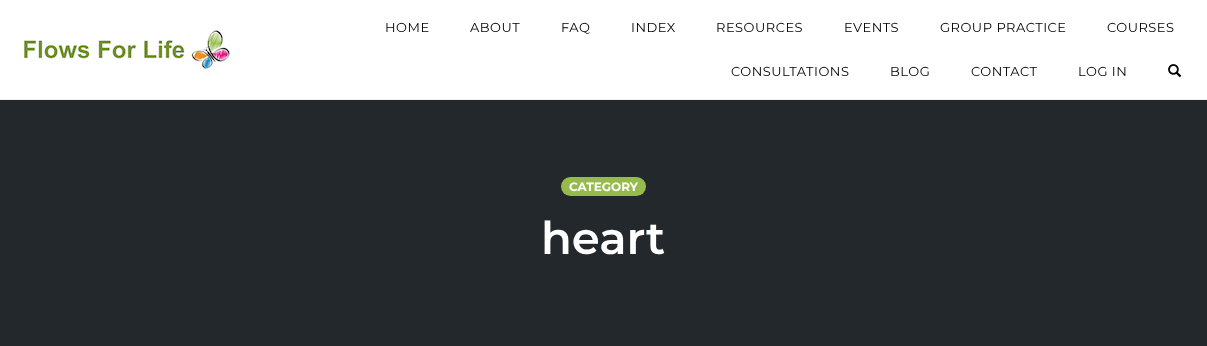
<!DOCTYPE html>
<meta charset="utf-8">
<style>body { margin: 0 } canvas { display: block }</style>
<canvas id="canvas" width="1207" height="346"></canvas>
<img id="img1" src="images/1.png" hidden>
<img id="img2" src="images/2.png" hidden>
<script>
window.onload = function () {
    const canvas = document.getElementById('canvas');
    const context = canvas.getContext('2d');
    context.miterLimit = 4;
    context.fontKerning = 'normal';

    context.fillStyle = 'rgb(255, 255, 255)';
    context.fillRect(0, 0, 1207, 346);
    context.fillStyle = 'rgb(240, 240, 240)';
    context.fillRect(0, 99, 1207, 1);
    context.drawImage(document.getElementById('img1'), 24, 30, 206, 39);
    context.drawImage(document.getElementById('img2'), 1168, 64, 14, 13);
    context.fillStyle = 'rgb(35, 40, 45)';
    context.fillRect(0, 100, 1207, 246);
    context.fillStyle = 'rgb(150, 187, 76)';
    context.beginPath();
    context.roundRect(561, 177, 85, 19, 9.5);
    context.fill();
    context.letterSpacing = '0.5px';
    context.font = '13px Montserrat';
    context.fillStyle = 'rgb(0, 0, 0)';
    context.fillText('HOME', 385, 32);
    context.fillText('ABOUT', 470, 32);
    context.fillText('FAQ', 561, 32);
    context.fillText('INDEX', 631, 32);
    context.fillText('RESOURCES', 716, 32);
    context.fillText('EVENTS', 844, 32);
    context.fillText('GROUP PRACTICE', 940, 32);
    context.fillText('COURSES', 1107, 32);
    context.fillText('CONSULTATIONS', 731, 76);
    context.fillText('BLOG', 890, 76);
    context.fillText('CONTACT', 971, 76);
    context.fillText('LOG IN', 1078, 76);
    context.letterSpacing = '0px';
    context.font = 'bold 12px Montserrat';
    context.fillStyle = 'rgb(255, 255, 255)';
    context.fillText('CATEGORY', 569, 191);
    context.font = '600 45px Montserrat';
    context.fillText('heart', 541, 254);
};
</script>
